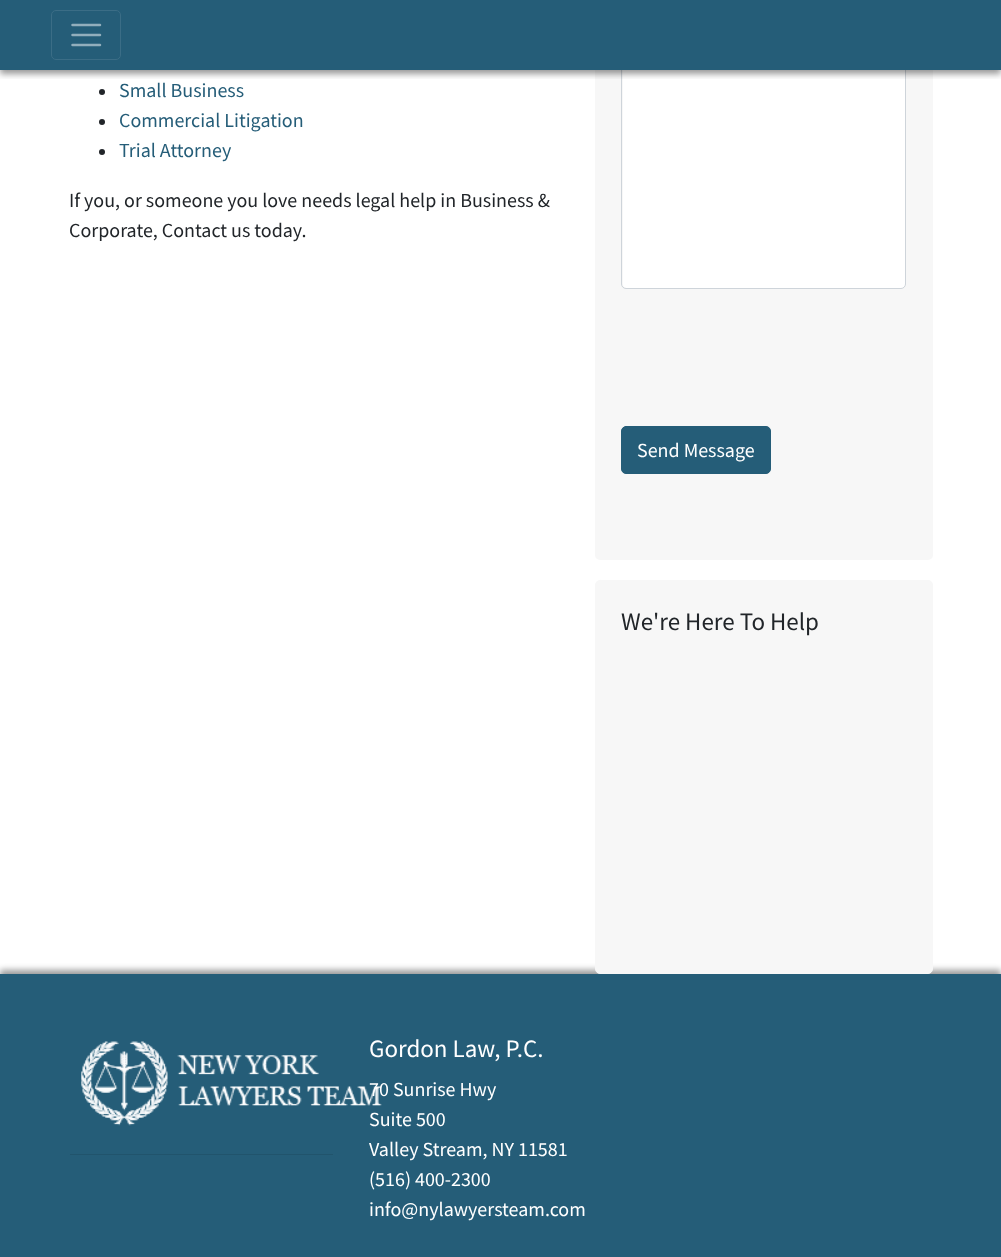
<!DOCTYPE html>
<meta charset="utf-8">
<style>body { margin: 0 } canvas { display: block }</style>
<canvas id="canvas" width="1001" height="1257"></canvas>
<img id="img1" src="images/1.png" hidden>
<script>
window.onload = function () {
    const canvas = document.getElementById('canvas');
    const context = canvas.getContext('2d');
    context.miterLimit = 4;
    context.fontKerning = 'normal';

    context.fillStyle = 'rgb(255, 255, 255)';
    context.fillRect(0, 0, 1001, 1257);
    context.fillStyle = 'rgb(247, 247, 247)';
    context.beginPath();
    context.roundRect(595, -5, 338, 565, 5);
    context.fill();
    context.fillStyle = 'rgb(255, 255, 255)';
    context.beginPath();
    context.roundRect(623, 40, 282, 248, 4);
    context.fill();
    context.beginPath();
    context.roundRect(621.5, 39.5, 284, 249, 4.5);
    context.strokeStyle = 'rgb(206, 212, 218)';
    context.stroke();
    context.fillStyle = 'rgb(37, 93, 120)';
    context.fillRect(0, 0, 1001, 70);
    context.save();
    context.beginPath();
    context.rect(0, 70, 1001, 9);
    context.clip();
    context.fillStyle = 'rgba(0, 0, 0, 0.4)';
    context.filter = 'blur(3px)';
    context.beginPath();
    context.rect(0, 4, 1001, 70);
    context.fill();
    context.filter = 'none';
    context.restore();
    context.beginPath();
    context.roundRect(51.5, 10.5, 69, 49, 4.5);
    context.strokeStyle = 'rgb(59, 109, 134)';
    context.stroke();
    context.beginPath();
    context.moveTo(72.5, 25);
    context.lineTo(100, 25);
    context.moveTo(72.5, 35);
    context.lineTo(100, 35);
    context.moveTo(72.5, 45);
    context.lineTo(100, 45);
    context.strokeStyle = 'rgb(146, 174, 188)';
    context.lineWidth = 2.5;
    context.lineCap = 'round';
    context.stroke();
    context.fillStyle = 'rgb(33, 37, 41)';
    context.beginPath();
    context.arc(102, 92, 3, 0, 2 * Math.PI);
    context.fill();
    context.beginPath();
    context.arc(102, 122, 3, 0, 2 * Math.PI);
    context.fill();
    context.beginPath();
    context.arc(102, 152, 3, 0, 2 * Math.PI);
    context.fill();
    context.fillStyle = 'rgb(37, 93, 120)';
    context.beginPath();
    context.roundRect(621.5, 426.5, 149, 47, 4.5);
    context.fill();
    context.strokeStyle = 'rgb(37, 93, 120)';
    context.lineWidth = 1;
    context.stroke();
    context.fillStyle = 'rgba(0, 0, 0, 0.4)';
    context.filter = 'blur(3px)';
    context.beginPath();
    context.rect(0, 970, 1001, 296);
    context.fill();
    context.filter = 'none';
    context.fillStyle = 'rgb(247, 247, 247)';
    context.beginPath();
    context.roundRect(595.5, 580.5, 337, 393, 4.5);
    context.fill();
    context.strokeStyle = 'rgb(247, 247, 247)';
    context.stroke();
    context.fillStyle = 'rgb(37, 93, 120)';
    context.fillRect(0, 974, 1001, 283);
    context.drawImage(document.getElementById('img1'), 81, 1041, 301, 85);
    context.fillStyle = 'rgb(33, 84, 108)';
    context.fillRect(70, 1154, 263, 1);
    context.font = '20px Source Sans Pro';
    context.fillStyle = 'rgb(37, 93, 120)';
    context.fillText('Small Business', 119, 97);
    context.fillText('Commercial Litigation', 119, 127);
    context.fillText('Trial Attorney', 119, 157);
    context.fillStyle = 'rgb(33, 37, 41)';
    context.fillText('If you, or someone you love needs legal help in Business &', 69, 207);
    context.fillText('Corporate, Contact us today.', 69, 237);
    context.fillStyle = 'rgb(255, 255, 255)';
    context.fillText('Send Message', 637, 457);
    context.font = '25px Source Sans Pro';
    context.fillStyle = 'rgb(33, 37, 41)';
    context.fillText('We\'re Here To Help', 621, 630);
    context.fillStyle = 'rgb(255, 255, 255)';
    context.fillText('Gordon Law, P.C.', 369, 1057);
    context.font = '20px Source Sans Pro';
    context.fillText('70 Sunrise Hwy', 369, 1096);
    context.fillText('Suite 500', 369, 1126);
    context.fillText('Valley Stream, NY 11581', 369, 1156);
    context.fillText('(516) 400-2300', 369, 1186);
    context.fillText('info@nylawyersteam.com', 369, 1216);
};
</script>
